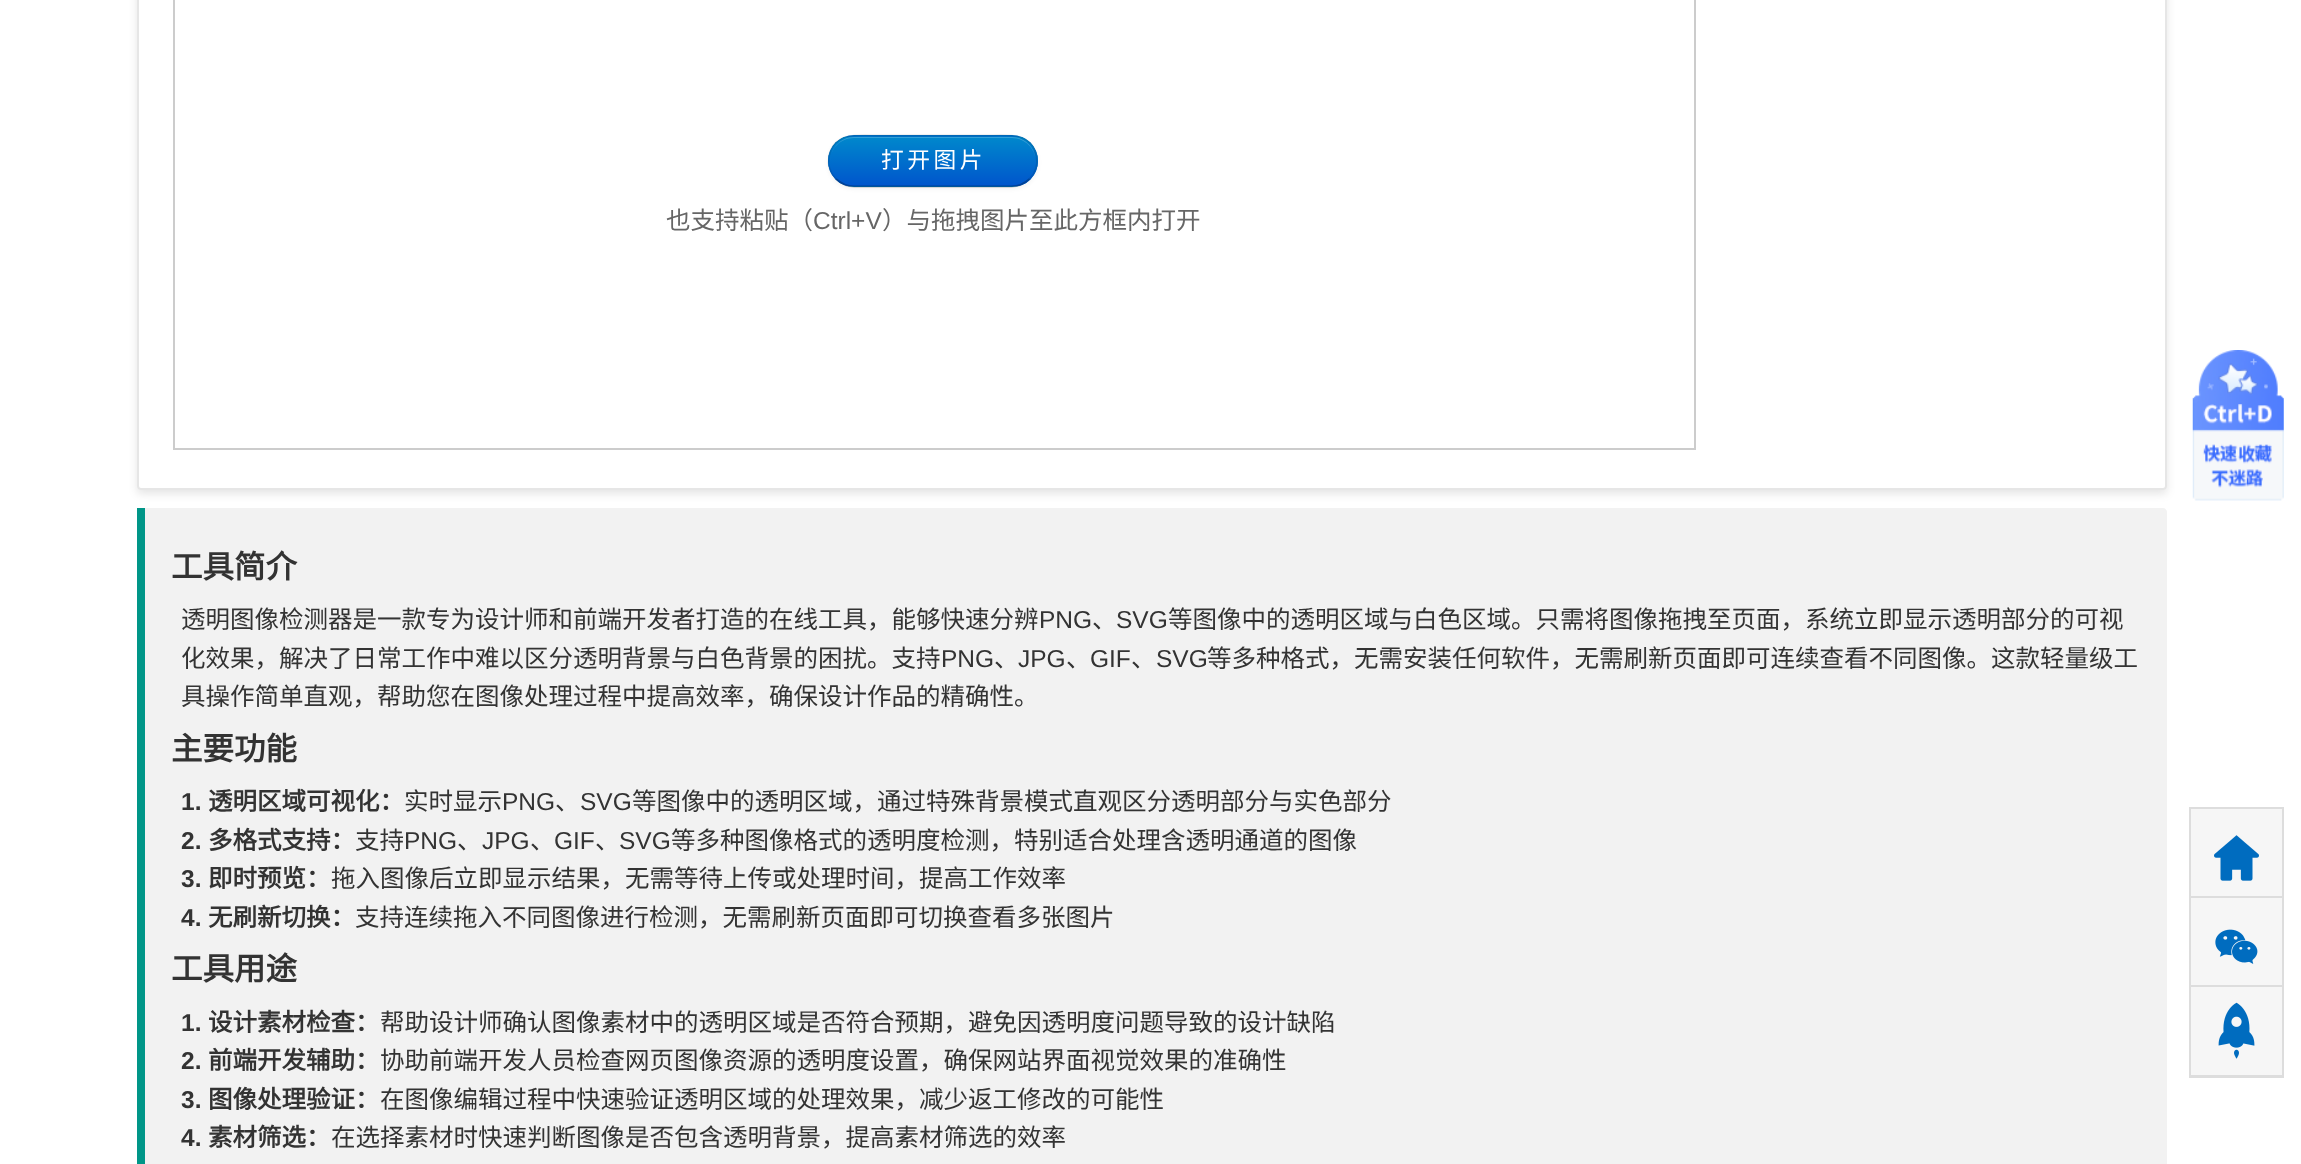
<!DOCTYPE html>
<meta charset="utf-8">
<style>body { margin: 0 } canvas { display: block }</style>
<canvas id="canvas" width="2301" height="1164"></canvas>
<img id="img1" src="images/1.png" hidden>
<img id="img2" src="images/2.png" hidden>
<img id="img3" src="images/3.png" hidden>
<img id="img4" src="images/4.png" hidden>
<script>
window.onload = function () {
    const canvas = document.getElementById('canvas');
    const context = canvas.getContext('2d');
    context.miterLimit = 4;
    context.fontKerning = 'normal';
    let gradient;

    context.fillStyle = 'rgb(255, 255, 255)';
    context.fillRect(0, 0, 2301, 1164);
    context.save();
    context.beginPath();
    context.moveTo(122, 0);
    context.lineTo(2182, 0);
    context.lineTo(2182, 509);
    context.lineTo(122, 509);
    context.closePath();
    context.moveTo(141, -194);
    context.lineTo(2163, -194);
    context.bezierCurveTo(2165, -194, 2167, -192, 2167, -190);
    context.lineTo(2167, 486);
    context.bezierCurveTo(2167, 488, 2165, 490, 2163, 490);
    context.lineTo(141, 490);
    context.bezierCurveTo(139, 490, 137, 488, 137, 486);
    context.lineTo(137, -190);
    context.bezierCurveTo(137, -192, 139, -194, 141, -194);
    context.closePath();
    context.clip('evenodd');
    context.fillStyle = 'rgba(0, 0, 0, 0.1)';
    context.filter = 'blur(4.5px)';
    context.beginPath();
    context.roundRect(137, -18, 2030, 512, 4);
    context.fill();
    context.filter = 'none';
    context.restore();
    context.beginPath();
    context.roundRect(138, -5, 2028, 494, 3);
    context.strokeStyle = 'rgb(230, 230, 230)';
    context.lineWidth = 2;
    context.stroke();
    context.strokeStyle = 'rgb(204, 204, 204)';
    context.strokeRect(174, -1, 1521, 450);
    context.fillStyle = 'rgba(0, 0, 0, 0.05)';
    context.filter = 'blur(2px)';
    context.beginPath();
    context.roundRect(828, 137, 210, 52, 26);
    context.fill();
    context.filter = 'none';
    context.fillStyle = 'rgb(0, 116, 204)';
    context.beginPath();
    context.roundRect(828, 135, 210, 52, 26);
    context.fill();
    context.save();
    context.beginPath();
    context.roundRect(828, 135, 210, 52, 26);
    context.clip();
    gradient = context.createLinearGradient(933, 137, 933, 186);
    gradient.addColorStop(0, 'rgb(0, 136, 204)');
    gradient.addColorStop(1, 'rgb(0, 85, 204)');
    context.fillStyle = gradient;
    context.fillRect(828, 137, 210, 49);
    context.restore();
    context.fillStyle = 'rgba(255, 255, 255, 0.2)';
    context.beginPath();
    context.moveTo(854, 138);
    context.lineTo(1012, 138);
    context.bezierCurveTo(1025, 138, 1036, 149, 1036, 162);
    context.bezierCurveTo(1036, 148, 1025, 137, 1012, 137);
    context.lineTo(854, 137);
    context.bezierCurveTo(841, 137, 830, 148, 830, 162);
    context.bezierCurveTo(830, 149, 840, 138, 854, 138);
    context.closePath();
    context.fill();
    context.beginPath();
    context.moveTo(1029.5, 179);
    context.bezierCurveTo(1024.5, 183.5, 1018, 186.5, 1011.5, 186.5);
    context.lineTo(854, 186.5);
    context.bezierCurveTo(847.5, 186.5, 841, 183.5, 836, 179);
    context.strokeStyle = 'rgba(0, 0, 0, 0.25)';
    context.lineWidth = 1.8;
    context.stroke();
    context.beginPath();
    context.moveTo(836, 179);
    context.bezierCurveTo(830, 173, 827.5, 164.5, 829, 156);
    context.bezierCurveTo(834, 130.5, 861.5, 135.5, 880, 135.5);
    context.lineTo(985, 135.5);
    context.bezierCurveTo(1004, 135.5, 1031.5, 130.5, 1036.5, 156);
    context.bezierCurveTo(1038, 164.5, 1035.5, 173, 1029.5, 179);
    context.strokeStyle = 'rgba(0, 0, 0, 0.1)';
    context.stroke();
    context.fillStyle = 'rgb(242, 242, 242)';
    context.beginPath();
    context.moveTo(137, 508);
    context.lineTo(2163, 508);
    context.bezierCurveTo(2165, 508, 2167, 510, 2167, 512);
    context.lineTo(2167, 1164);
    context.bezierCurveTo(2167, 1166, 2165, 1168, 2163, 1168);
    context.lineTo(137, 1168);
    context.closePath();
    context.fill();
    context.fillStyle = 'rgb(0, 150, 136)';
    context.fillRect(137, 508, 8, 656);
    context.drawImage(document.getElementById('img1'), 2192, 350, 92, 151);
    context.strokeStyle = 'rgb(221, 221, 221)';
    context.lineWidth = 2;
    context.strokeRect(2190, 808, 93, 269);
    context.fillStyle = 'rgb(246, 246, 246)';
    context.fillRect(2191, 809, 91, 87);
    context.fillStyle = 'rgb(221, 221, 221)';
    context.fillRect(2191, 896, 91, 2);
    context.drawImage(document.getElementById('img2'), 2214, 835, 45, 46);
    context.fillStyle = 'rgb(246, 246, 246)';
    context.fillRect(2191, 898, 91, 87);
    context.fillStyle = 'rgb(221, 221, 221)';
    context.fillRect(2191, 985, 91, 2);
    context.drawImage(document.getElementById('img3'), 2215, 929, 43, 35);
    context.fillStyle = 'rgb(246, 246, 246)';
    context.fillRect(2191, 987, 91, 88);
    context.fillStyle = 'rgb(221, 221, 221)';
    context.fillRect(2191, 1075, 91, 1);
    context.drawImage(document.getElementById('img4'), 2218, 1002, 37, 57);
    context.letterSpacing = '3.5px';
    context.font = '22.75px Noto Sans CJK SC';
    context.fillStyle = 'rgb(255, 255, 255)';
    context.fillText('打开图片', 881, 168);
    context.letterSpacing = '0px';
    context.font = '24.5px Noto Sans CJK SC';
    context.fillStyle = 'rgb(102, 102, 102)';
    context.fillText('也支持粘贴（', 666, 229);
    context.font = '24.5px Liberation Sans';
    context.fillText('Ctrl+V', 813, 229);
    context.font = '24.5px Noto Sans CJK SC';
    context.fillText('）与拖拽图片至此方框内打开', 882, 229);
    context.font = 'bold 31.5px Noto Sans CJK SC';
    context.fillStyle = 'rgb(51, 51, 51)';
    context.fillText('工具简介', 171, 578);
    context.font = '24.5px Noto Sans CJK SC';
    context.fillText('透明图像检测器是一款专为设计师和前端开发者打造的在线工具，能够快速分辨', 181, 628);
    context.font = '24.5px Liberation Sans';
    context.fillText('PNG', 1039, 628);
    context.font = '24.5px Noto Sans CJK SC';
    context.fillText('、', 1092, 628);
    context.font = '24.5px Liberation Sans';
    context.fillText('SVG', 1116, 628);
    context.font = '24.5px Noto Sans CJK SC';
    context.fillText('等图像中的透明区域与白色区域。只需将图像拖拽至页面，系统立即显示透明部分的可视', 1168, 628);
    context.fillText('化效果，解决了日常工作中难以区分透明背景与白色背景的困扰。支持', 181, 667);
    context.font = '24.5px Liberation Sans';
    context.fillText('PNG', 941, 667);
    context.font = '24.5px Noto Sans CJK SC';
    context.fillText('、', 994, 667);
    context.font = '24.5px Liberation Sans';
    context.fillText('JPG', 1018, 667);
    context.font = '24.5px Noto Sans CJK SC';
    context.fillText('、', 1066, 667);
    context.font = '24.5px Liberation Sans';
    context.fillText('GIF', 1090, 667);
    context.font = '24.5px Noto Sans CJK SC';
    context.fillText('、', 1131, 667);
    context.font = '24.5px Liberation Sans';
    context.fillText('SVG', 1156, 667);
    context.font = '24.5px Noto Sans CJK SC';
    context.fillText('等多种格式，无需安装任何软件，无需刷新页面即可连续查看不同图像。这款轻量级工', 1207, 667);
    context.fillText('具操作简单直观，帮助您在图像处理过程中提高效率，确保设计作品的精确性。', 181, 705);
    context.font = 'bold 31.5px Noto Sans CJK SC';
    context.fillText('主要功能', 171, 760);
    context.font = 'bold 24.5px Liberation Sans';
    context.fillText('1.', 181, 810);
    context.font = 'bold 24.5px Noto Sans CJK SC';
    context.fillText('透明区域可视化：', 208, 810);
    context.font = '24.5px Noto Sans CJK SC';
    context.fillText('实时显示', 404, 810);
    context.font = '24.5px Liberation Sans';
    context.fillText('PNG', 502, 810);
    context.font = '24.5px Noto Sans CJK SC';
    context.fillText('、', 555, 810);
    context.font = '24.5px Liberation Sans';
    context.fillText('SVG', 580, 810);
    context.font = '24.5px Noto Sans CJK SC';
    context.fillText('等图像中的透明区域，通过特殊背景模式直观区分透明部分与实色部分', 632, 810);
    context.font = 'bold 24.5px Liberation Sans';
    context.fillText('2.', 181, 849);
    context.font = 'bold 24.5px Noto Sans CJK SC';
    context.fillText('多格式支持：', 208, 849);
    context.font = '24.5px Noto Sans CJK SC';
    context.fillText('支持', 355, 849);
    context.font = '24.5px Liberation Sans';
    context.fillText('PNG', 404, 849);
    context.font = '24.5px Noto Sans CJK SC';
    context.fillText('、', 457, 849);
    context.font = '24.5px Liberation Sans';
    context.fillText('JPG', 482, 849);
    context.font = '24.5px Noto Sans CJK SC';
    context.fillText('、', 530, 849);
    context.font = '24.5px Liberation Sans';
    context.fillText('GIF', 554, 849);
    context.font = '24.5px Noto Sans CJK SC';
    context.fillText('、', 595, 849);
    context.font = '24.5px Liberation Sans';
    context.fillText('SVG', 619, 849);
    context.font = '24.5px Noto Sans CJK SC';
    context.fillText('等多种图像格式的透明度检测，特别适合处理含透明通道的图像', 671, 849);
    context.font = 'bold 24.5px Liberation Sans';
    context.fillText('3.', 181, 887);
    context.font = 'bold 24.5px Noto Sans CJK SC';
    context.fillText('即时预览：', 208, 887);
    context.font = '24.5px Noto Sans CJK SC';
    context.fillText('拖入图像后立即显示结果，无需等待上传或处理时间，提高工作效率', 331, 887);
    context.font = 'bold 24.5px Liberation Sans';
    context.fillText('4.', 181, 926);
    context.font = 'bold 24.5px Noto Sans CJK SC';
    context.fillText('无刷新切换：', 208, 926);
    context.font = '24.5px Noto Sans CJK SC';
    context.fillText('支持连续拖入不同图像进行检测，无需刷新页面即可切换查看多张图片', 355, 926);
    context.font = 'bold 31.5px Noto Sans CJK SC';
    context.fillText('工具用途', 171, 980);
    context.font = 'bold 24.5px Liberation Sans';
    context.fillText('1.', 181, 1031);
    context.font = 'bold 24.5px Noto Sans CJK SC';
    context.fillText('设计素材检查：', 208, 1031);
    context.font = '24.5px Noto Sans CJK SC';
    context.fillText('帮助设计师确认图像素材中的透明区域是否符合预期，避免因透明度问题导致的设计缺陷', 380, 1031);
    context.font = 'bold 24.5px Liberation Sans';
    context.fillText('2.', 181, 1069);
    context.font = 'bold 24.5px Noto Sans CJK SC';
    context.fillText('前端开发辅助：', 208, 1069);
    context.font = '24.5px Noto Sans CJK SC';
    context.fillText('协助前端开发人员检查网页图像资源的透明度设置，确保网站界面视觉效果的准确性', 380, 1069);
    context.font = 'bold 24.5px Liberation Sans';
    context.fillText('3.', 181, 1108);
    context.font = 'bold 24.5px Noto Sans CJK SC';
    context.fillText('图像处理验证：', 208, 1108);
    context.font = '24.5px Noto Sans CJK SC';
    context.fillText('在图像编辑过程中快速验证透明区域的处理效果，减少返工修改的可能性', 380, 1108);
    context.font = 'bold 24.5px Liberation Sans';
    context.fillText('4.', 181, 1146);
    context.font = 'bold 24.5px Noto Sans CJK SC';
    context.fillText('素材筛选：', 208, 1146);
    context.font = '24.5px Noto Sans CJK SC';
    context.fillText('在选择素材时快速判断图像是否包含透明背景，提高素材筛选的效率', 331, 1146);
};
</script>
